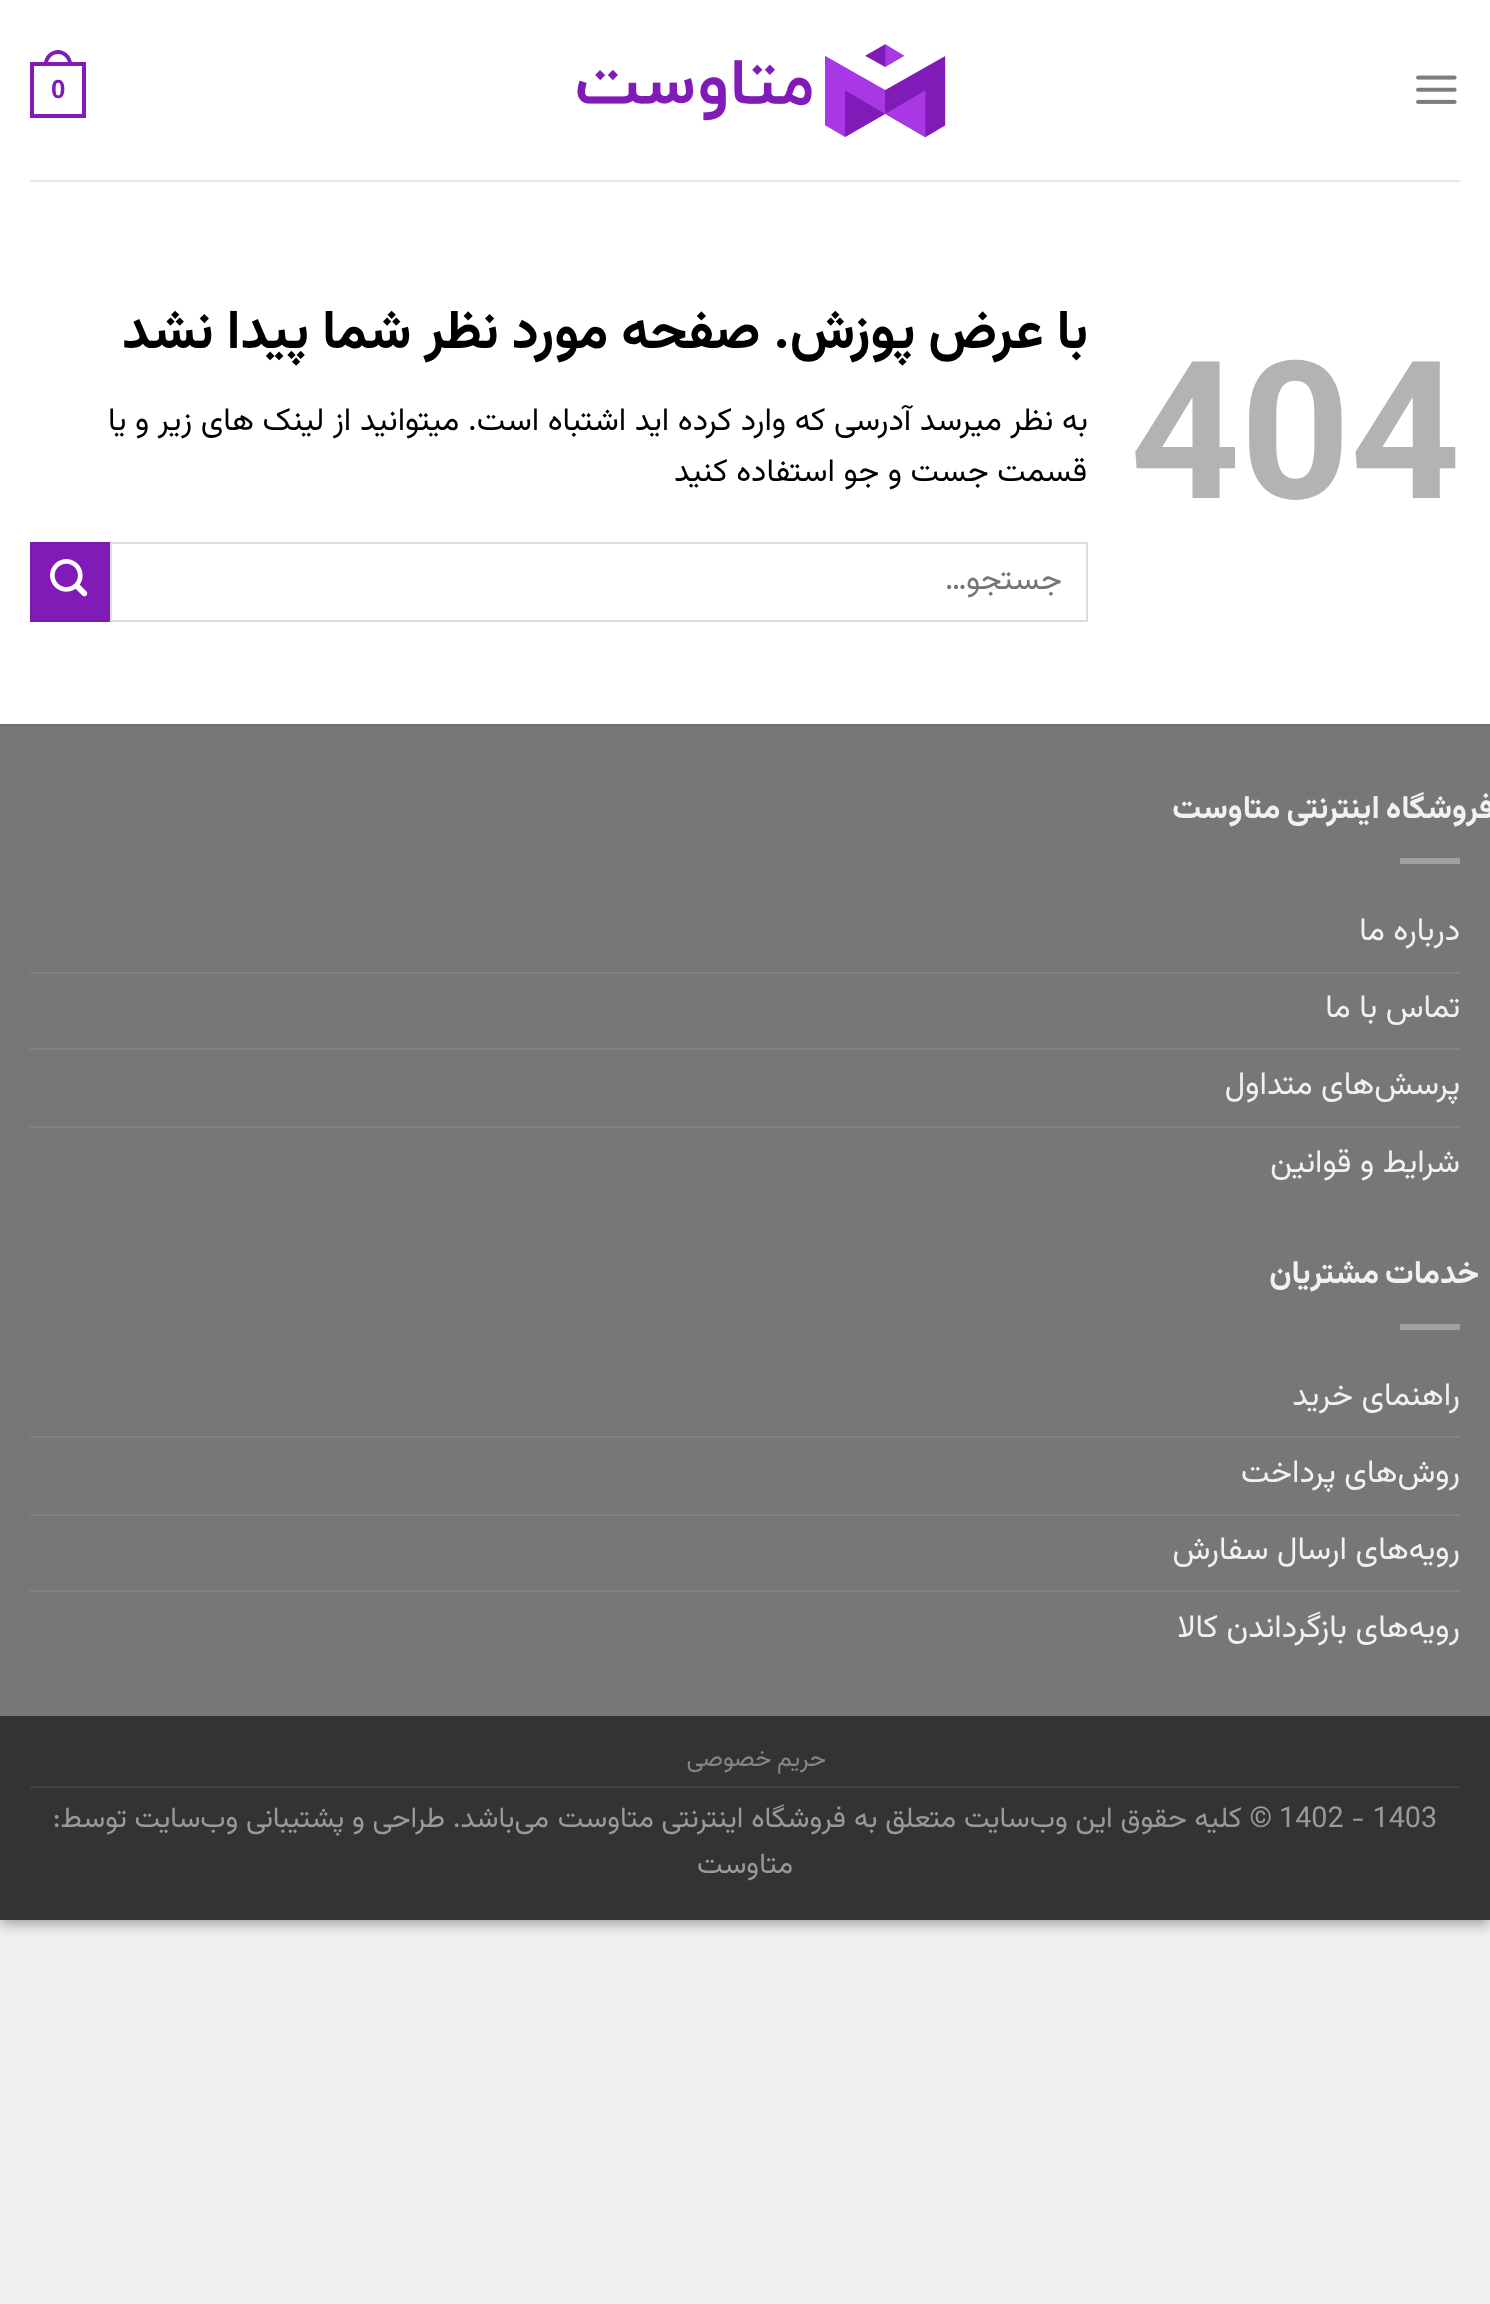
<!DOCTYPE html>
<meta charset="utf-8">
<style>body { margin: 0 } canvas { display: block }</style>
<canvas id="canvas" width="1490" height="2304"></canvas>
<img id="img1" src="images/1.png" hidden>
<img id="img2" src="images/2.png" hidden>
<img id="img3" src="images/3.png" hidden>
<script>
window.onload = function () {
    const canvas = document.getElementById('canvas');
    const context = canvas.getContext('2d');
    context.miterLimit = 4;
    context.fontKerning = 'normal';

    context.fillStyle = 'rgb(238, 239, 241)';
    context.fillRect(0, 0, 1490, 2304);
    context.fillStyle = 'rgba(0, 0, 0, 0.23)';
    context.filter = 'blur(6px)';
    context.beginPath();
    context.rect(0, 6, 1490, 1920);
    context.fill();
    context.filter = 'none';
    context.fillStyle = 'rgba(0, 0, 0, 0.16)';
    context.filter = 'blur(6px)';
    context.beginPath();
    context.rect(8, 14, 1474, 1904);
    context.fill();
    context.filter = 'none';
    context.fillStyle = 'rgb(255, 255, 255)';
    context.fillRect(0, 0, 1490, 724);
    context.drawImage(document.getElementById('img1'), 1416, 75, 41, 29);
    context.drawImage(document.getElementById('img2'), 577, 44, 369, 94);
    context.strokeStyle = 'rgb(128, 27, 183)';
    context.lineWidth = 4;
    context.strokeRect(32, 64, 52, 52);
    context.fillStyle = 'rgb(128, 27, 183)';
    context.beginPath();
    context.moveTo(58, 50);
    context.bezierCurveTo(65.5, 50, 72, 56.5, 72, 64);
    context.lineTo(72, 66);
    context.lineTo(44, 66);
    context.lineTo(44, 64);
    context.bezierCurveTo(44, 56.5, 50.5, 50, 58, 50);
    context.closePath();
    context.moveTo(58, 54);
    context.bezierCurveTo(63.5, 54, 68, 58.5, 68, 64);
    context.lineTo(68, 66);
    context.lineTo(48, 66);
    context.lineTo(48, 64);
    context.bezierCurveTo(48, 58.5, 52.5, 54, 58, 54);
    context.closePath();
    context.fill('evenodd');
    context.fillStyle = 'rgb(230, 230, 230)';
    context.fillRect(30, 180, 1430, 2);
    context.strokeStyle = 'rgb(221, 221, 221)';
    context.lineWidth = 2;
    context.strokeRect(111, 543, 976, 78);
    context.fillStyle = 'rgb(128, 27, 183)';
    context.beginPath();
    context.rect(31, 543, 78, 78);
    context.fill();
    context.strokeStyle = 'rgb(122, 26, 174)';
    context.stroke();
    context.drawImage(document.getElementById('img3'), 50, 559, 38, 38);
    context.fillStyle = 'rgb(119, 119, 119)';
    context.fillRect(0, 726, 1490, 990);
    context.fillStyle = 'rgb(113, 113, 113)';
    context.fillRect(0, 724, 1490, 2);
    context.fillStyle = 'rgb(160, 160, 160)';
    context.fillRect(1400, 858, 60, 6);
    context.fillStyle = 'rgb(130, 130, 130)';
    context.fillRect(30, 972, 1430, 2);
    context.fillRect(30, 1048, 1430, 2);
    context.fillRect(30, 1126, 1430, 2);
    context.fillStyle = 'rgb(160, 160, 160)';
    context.fillRect(1400, 1324, 60, 6);
    context.fillStyle = 'rgb(130, 130, 130)';
    context.fillRect(30, 1436, 1430, 2);
    context.fillRect(30, 1514, 1430, 2);
    context.fillRect(30, 1590, 1430, 2);
    context.fillStyle = 'rgb(51, 51, 51)';
    context.fillRect(0, 1716, 1490, 204);
    context.fillStyle = 'rgb(64, 64, 64)';
    context.fillRect(30, 1786, 1430, 2);
    context.font = 'bold 26px Liberation Sans';
    context.fillStyle = 'rgb(128, 27, 183)';
    context.fillText('0', 51, 98);
    context.font = 'bold 192px Vazirmatn';
    context.fillStyle = 'rgb(179, 179, 179)';
    context.fillText('404', 1130, 498);
    context.wordSpacing = '-0.75px';
    context.direction = 'rtl';
    context.font = 'bold 54.4px Vazirmatn';
    context.fillStyle = 'rgb(0, 0, 0)';
    context.fillText('با عرض پوزش. صفحه مورد نظر شما پیدا نشد', 1088, 348);
    context.wordSpacing = '0px';
    context.font = '32px Vazirmatn';
    context.fillText('به نظر میرسد آدرسی که وارد کرده اید اشتباه است. میتوانید از لینک های زیر و یا', 1088, 430);
    context.fillText('قسمت جست و جو استفاده کنید', 1087, 481);
    context.fillStyle = 'rgb(117, 117, 117)';
    context.fillText('جستجو…', 1062, 589);
    context.letterSpacing = '1.6px';
    context.wordSpacing = '-2px';
    context.font = 'bold 32px Vazirmatn';
    context.fillStyle = 'rgb(241, 241, 241)';
    context.fillText('فروشگاه اینترنتی متاوست', 1494, 818);
    context.letterSpacing = '0px';
    context.wordSpacing = '0px';
    context.font = '32px Vazirmatn';
    context.fillText('درباره ما', 1460, 940);
    context.fillText('تماس با ما', 1460, 1017);
    context.fillText('پرسش‌های متداول', 1460, 1094);
    context.fillText('شرایط و قوانین', 1460, 1172);
    context.letterSpacing = '1.6px';
    context.wordSpacing = '-2px';
    context.font = 'bold 32px Vazirmatn';
    context.fillText('خدمات مشتریان', 1479, 1283);
    context.letterSpacing = '0px';
    context.wordSpacing = '0px';
    context.font = '32px Vazirmatn';
    context.fillText('راهنمای خرید', 1460, 1405);
    context.fillText('روش‌های پرداخت', 1460, 1482);
    context.fillText('رویه‌های ارسال سفارش', 1460, 1559);
    context.fillText('رویه‌های بازگرداندن کالا', 1460, 1637);
    context.letterSpacing = '1.25px';
    context.wordSpacing = '-1px';
    context.font = '24.5px Vazirmatn';
    context.fillStyle = 'rgb(133, 133, 133)';
    context.fillText('حریم خصوصی', 826, 1766);
    context.letterSpacing = '0px';
    context.wordSpacing = '0px';
    context.direction = 'ltr';
    context.font = '28.75px Vazirmatn';
    context.fillStyle = 'rgb(153, 153, 153)';
    context.fillText('1402 - 1403', 1279, 1827);
    context.direction = 'rtl';
    context.fillText('© کلیه حقوق این وب‌سایت متعلق به', 1272, 1827);
    context.fillText('فروشگاه اینترنتی متاوست', 846, 1827);
    context.fillText('می‌باشد. طراحی و پشتیبانی وب‌سایت توسط:', 549, 1827);
    context.fillText('متاوست', 793, 1873);
};
</script>
